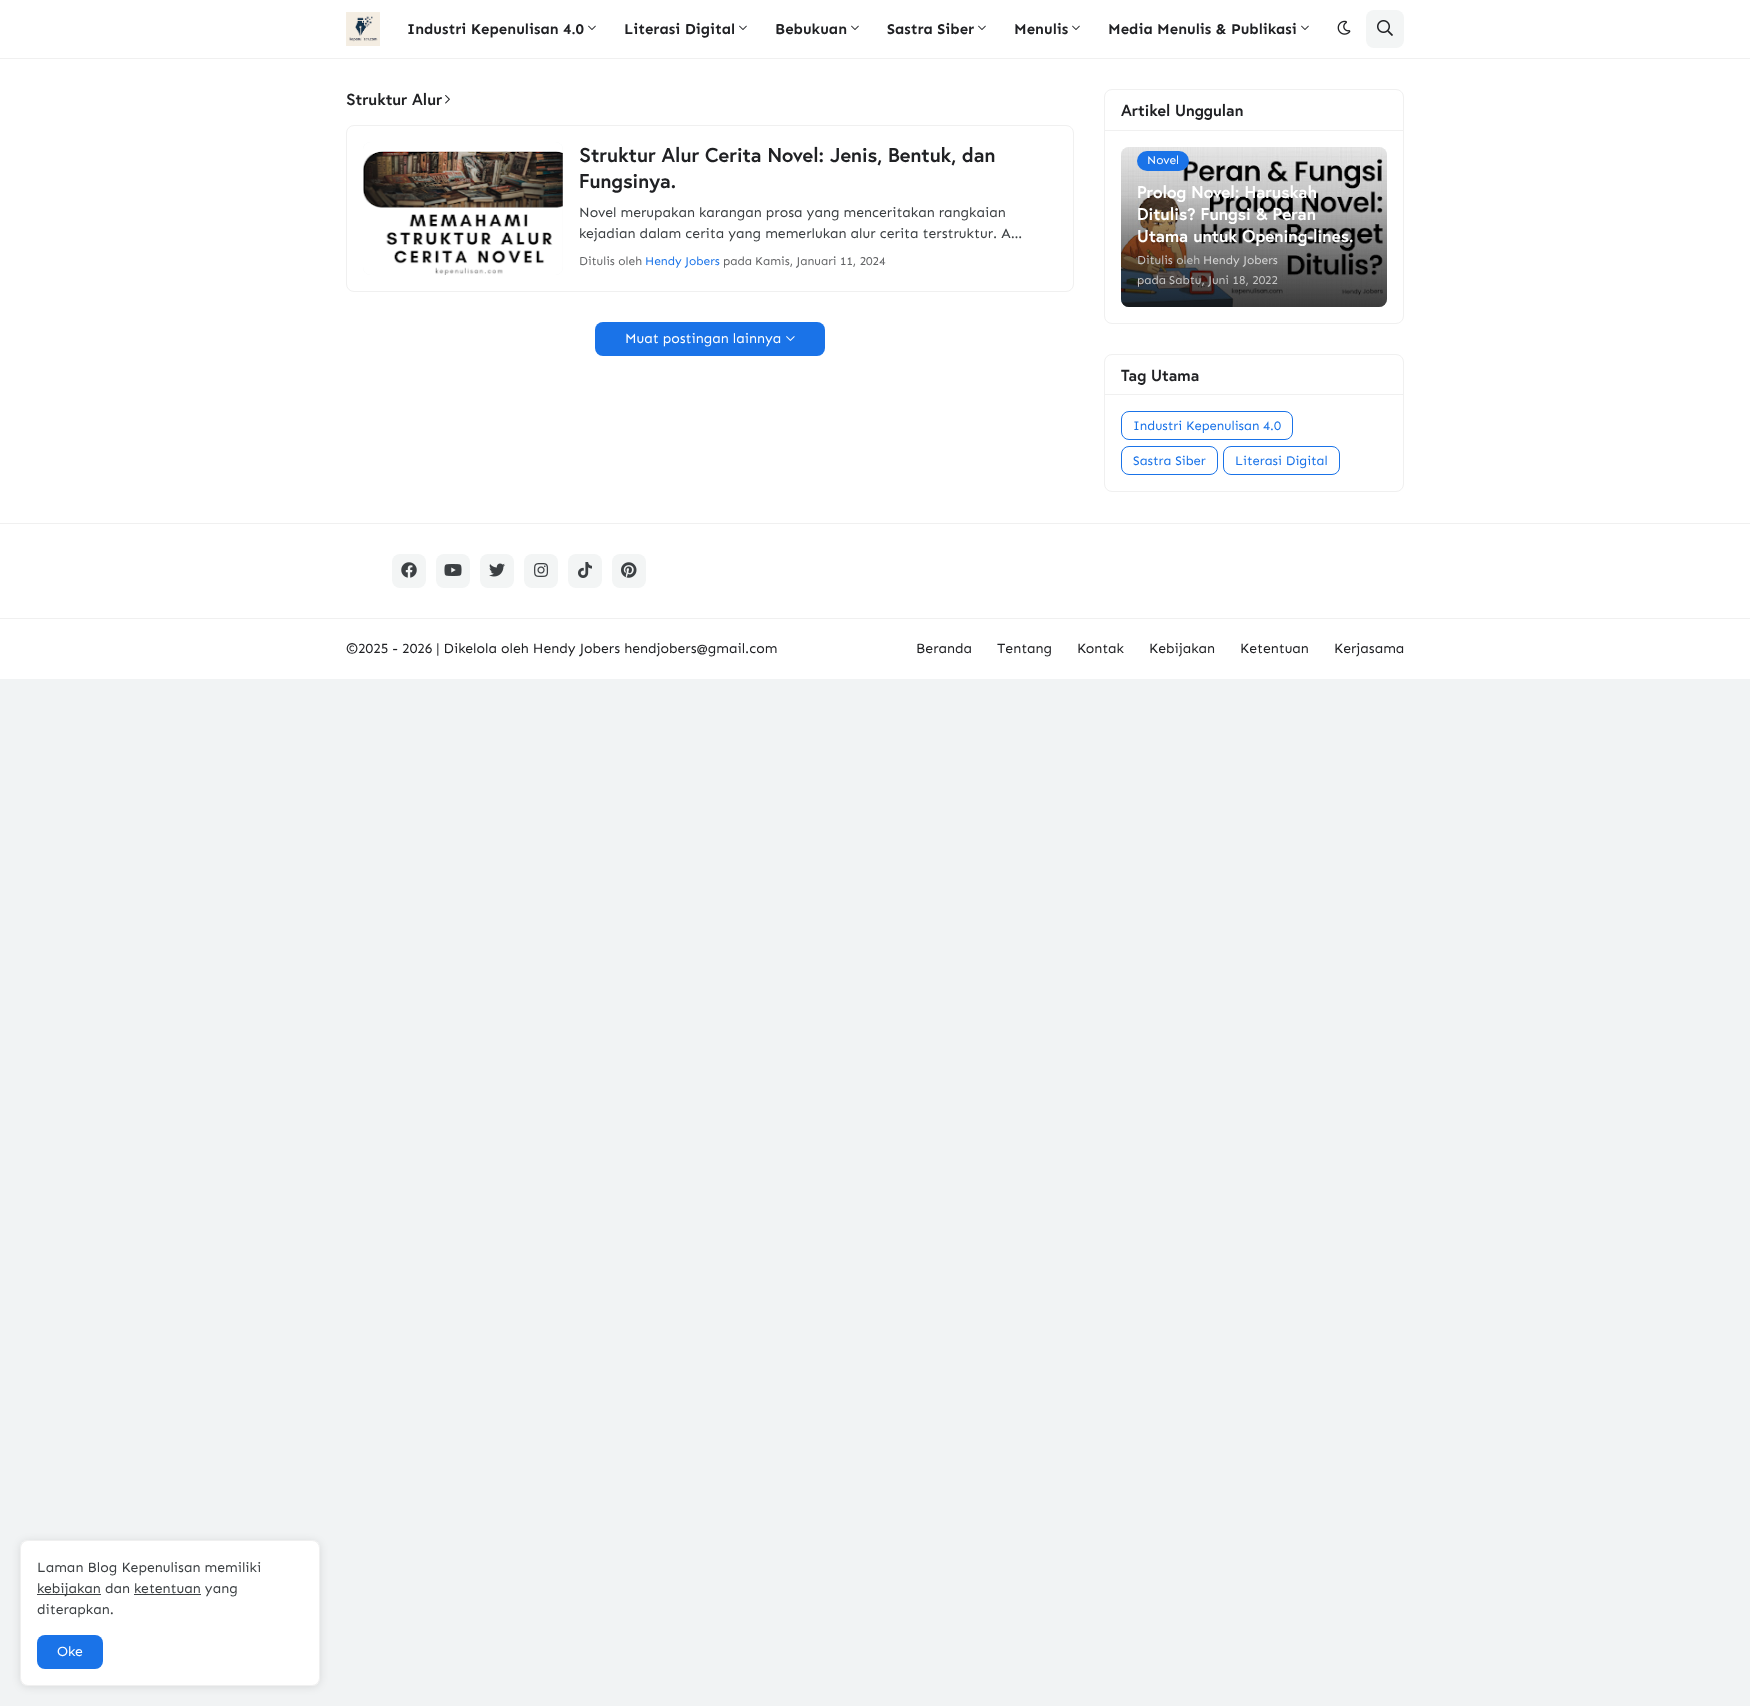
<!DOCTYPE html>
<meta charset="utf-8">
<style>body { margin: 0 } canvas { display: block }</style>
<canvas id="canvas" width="1750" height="1706"></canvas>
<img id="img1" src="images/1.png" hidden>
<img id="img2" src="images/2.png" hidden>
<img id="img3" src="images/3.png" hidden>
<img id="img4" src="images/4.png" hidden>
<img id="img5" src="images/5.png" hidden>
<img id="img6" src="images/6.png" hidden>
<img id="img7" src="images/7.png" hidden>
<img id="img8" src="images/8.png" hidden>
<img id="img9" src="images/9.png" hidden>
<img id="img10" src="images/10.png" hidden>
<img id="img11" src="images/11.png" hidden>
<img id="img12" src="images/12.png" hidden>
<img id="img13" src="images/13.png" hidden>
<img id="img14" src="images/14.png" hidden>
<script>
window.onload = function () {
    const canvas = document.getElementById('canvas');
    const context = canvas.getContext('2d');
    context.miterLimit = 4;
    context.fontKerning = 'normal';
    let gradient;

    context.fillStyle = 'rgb(241, 243, 244)';
    context.fillRect(0, 0, 1750, 1706);
    context.fillStyle = 'rgb(255, 255, 255)';
    context.fillRect(0, 0, 1750, 679);
    context.fillStyle = 'rgb(240, 240, 240)';
    context.fillRect(0, 58, 1750, 1);
    context.drawImage(document.getElementById('img1'), 346, 12, 34, 34);
    context.drawImage(document.getElementById('img2'), 588, 25, 8, 5);
    context.drawImage(document.getElementById('img2'), 739, 25, 8, 5);
    context.drawImage(document.getElementById('img2'), 851, 25, 8, 5);
    context.drawImage(document.getElementById('img2'), 978, 25, 8, 5);
    context.drawImage(document.getElementById('img2'), 1072, 25, 8, 5);
    context.drawImage(document.getElementById('img2'), 1301, 25, 8, 5);
    context.drawImage(document.getElementById('img3'), 1337, 20, 14, 15);
    context.fillStyle = 'rgb(243, 245, 245)';
    context.beginPath();
    context.roundRect(1366, 10, 38, 38, 8);
    context.fill();
    context.drawImage(document.getElementById('img4'), 1377, 20, 16, 16);
    context.drawImage(document.getElementById('img5'), 445, 95, 5, 9);
    context.beginPath();
    context.roundRect(346.5, 125.5, 727, 166, 7.5);
    context.strokeStyle = 'rgb(240, 240, 240)';
    context.stroke();
    context.beginPath();
    context.roundRect(363, 142, 200, 133, 8);
    context.fill();
    context.drawImage(document.getElementById('img6'), 363, 142, 200, 133);
    context.fillStyle = 'rgb(26, 115, 232)';
    context.beginPath();
    context.roundRect(595, 322, 230, 34, 8);
    context.fill();
    context.drawImage(document.getElementById('img7'), 786, 336, 9, 5);
    context.beginPath();
    context.roundRect(1104.5, 89.5, 299, 234, 7.5);
    context.stroke();
    context.fillStyle = 'rgb(240, 240, 240)';
    context.fillRect(1105, 130, 298, 1);
    context.fillStyle = 'rgb(243, 245, 245)';
    context.beginPath();
    context.roundRect(1121, 147, 266, 160, 8);
    context.fill();
    context.drawImage(document.getElementById('img8'), 1121, 147, 266, 160);
    gradient = context.createLinearGradient(1254, 147, 1254, 307);
    gradient.addColorStop(0.3, 'rgba(0, 0, 0, 0)');
    gradient.addColorStop(1, 'rgba(0, 0, 0, 0.5)');
    context.fillStyle = gradient;
    context.beginPath();
    context.roundRect(1121, 147, 266, 160, 8);
    context.fill();
    gradient = context.createLinearGradient(1254, 135, 1254, 307);
    gradient.addColorStop(0, 'rgba(0, 0, 0, 0)');
    gradient.addColorStop(1, 'rgba(0, 0, 0, 0.5)');
    context.fillStyle = gradient;
    context.beginPath();
    context.roundRect(1121, 147, 266, 160, 8);
    context.fill();
    context.fillStyle = 'rgb(26, 115, 232)';
    context.beginPath();
    context.roundRect(1137, 151, 52, 20, 10);
    context.fill();
    context.beginPath();
    context.roundRect(1104.5, 354.5, 299, 137, 7.5);
    context.stroke();
    context.fillStyle = 'rgb(240, 240, 240)';
    context.fillRect(1105, 394, 298, 1);
    context.beginPath();
    context.roundRect(1121.5, 411.5, 171, 28, 7.5);
    context.strokeStyle = 'rgb(26, 115, 232)';
    context.stroke();
    context.beginPath();
    context.roundRect(1121.5, 446.5, 96, 28, 7.5);
    context.stroke();
    context.beginPath();
    context.roundRect(1223.5, 446.5, 116, 28, 7.5);
    context.stroke();
    context.fillRect(0, 523, 1750, 1);
    context.fillStyle = 'rgb(243, 245, 245)';
    context.beginPath();
    context.roundRect(392, 554, 34, 34, 8);
    context.fill();
    context.drawImage(document.getElementById('img9'), 401, 562, 16, 16);
    context.beginPath();
    context.roundRect(436, 554, 34, 34, 8);
    context.fill();
    context.drawImage(document.getElementById('img10'), 444, 564, 18, 12);
    context.beginPath();
    context.roundRect(480, 554, 34, 34, 8);
    context.fill();
    context.drawImage(document.getElementById('img11'), 489, 563, 16, 14);
    context.beginPath();
    context.roundRect(524, 554, 34, 34, 8);
    context.fill();
    context.drawImage(document.getElementById('img12'), 534, 563, 15, 14);
    context.beginPath();
    context.roundRect(568, 554, 34, 34, 8);
    context.fill();
    context.drawImage(document.getElementById('img13'), 578, 562, 14, 16);
    context.beginPath();
    context.roundRect(612, 554, 34, 34, 8);
    context.fill();
    context.drawImage(document.getElementById('img14'), 621, 562, 16, 16);
    context.fillStyle = 'rgb(240, 240, 240)';
    context.fillRect(0, 618, 1750, 1);
    context.fillStyle = 'rgba(0, 0, 0, 0.1)';
    context.filter = 'blur(4px)';
    context.beginPath();
    context.roundRect(20, 1541, 300, 146, 8);
    context.fill();
    context.filter = 'none';
    context.fillStyle = 'rgb(255, 255, 255)';
    context.beginPath();
    context.roundRect(20, 1540, 300, 146, 8);
    context.fill();
    context.beginPath();
    context.roundRect(20.5, 1540.5, 299, 145, 7.5);
    context.strokeStyle = 'rgba(155, 155, 155, 0.15)';
    context.stroke();
    context.fillStyle = 'rgb(60, 64, 67)';
    context.fillRect(37, 1594, 64, 1);
    context.fillRect(134, 1594, 67, 1);
    context.fillStyle = 'rgb(26, 115, 232)';
    context.beginPath();
    context.roundRect(37, 1635, 66, 34, 8);
    context.fill();
    context.font = 'bold 15px Sen';
    context.fillStyle = 'rgb(32, 33, 36)';
    context.fillText('Industri Kepenulisan 4.0', 407, 34);
    context.fillText('Literasi Digital', 624, 34);
    context.fillText('Bebukuan', 775, 34);
    context.fillText('Sastra Siber', 887, 34);
    context.fillText('Menulis', 1014, 34);
    context.fillText('Media Menulis & Publikasi', 1108, 34);
    context.font = 'bold 16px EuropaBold';
    context.fillText('Struktur Alur', 346, 105);
    context.font = 'bold 20px EuropaBold';
    context.fillText('Struktur Alur Cerita Novel: Jenis, Bentuk, dan', 579, 162);
    context.fillText('Fungsinya.', 579, 188);
    context.font = '14px Sen';
    context.fillStyle = 'rgb(60, 64, 67)';
    context.fillText('Novel merupakan karangan prosa yang menceritakan rangkaian', 579, 217);
    context.fillText('kejadian dalam cerita yang memerlukan alur cerita terstruktur. A…', 579, 238);
    context.font = '12px Sen';
    context.fillStyle = 'rgb(99, 100, 102)';
    context.fillText('Ditulis oleh', 579, 265);
    context.fillStyle = 'rgb(26, 115, 232)';
    context.fillText('Hendy Jobers', 645, 265);
    context.fillStyle = 'rgb(99, 100, 102)';
    context.fillText('pada', 723, 265);
    context.fillText('Kamis, Januari 11, 2024', 755, 265);
    context.font = '14px Sen';
    context.fillStyle = 'rgb(255, 255, 255)';
    context.fillText('Muat postingan lainnya', 625, 343);
    context.font = 'bold 16px EuropaBold';
    context.fillStyle = 'rgb(32, 33, 36)';
    context.fillText('Artikel Unggulan', 1121, 116);
    context.font = '12px Sen';
    context.fillStyle = 'rgb(255, 255, 255)';
    context.fillText('Novel', 1147, 164);
    context.font = 'bold 17px EuropaBold';
    context.fillText('Prolog Novel: Haruskah', 1137, 198);
    context.fillText('Ditulis? Fungsi & Peran', 1137, 220);
    context.fillText('Utama untuk Opening-lines.', 1137, 242);
    context.font = '12px Sen';
    context.fillStyle = 'rgb(197, 197, 197)';
    context.fillText('Ditulis oleh', 1137, 264);
    context.fillStyle = 'rgb(213, 213, 213)';
    context.fillText('Hendy Jobers', 1203, 264);
    context.fillStyle = 'rgb(197, 197, 197)';
    context.fillText('pada', 1137, 284);
    context.fillText('Sabtu, Juni 18, 2022', 1169, 284);
    context.font = 'bold 16px EuropaBold';
    context.fillStyle = 'rgb(32, 33, 36)';
    context.fillText('Tag Utama', 1121, 381);
    context.font = '13px Sen';
    context.fillStyle = 'rgb(26, 115, 232)';
    context.fillText('Industri Kepenulisan 4.0', 1133, 430);
    context.fillText('Sastra Siber', 1133, 465);
    context.fillText('Literasi Digital', 1235, 465);
    context.font = '14px Sen';
    context.fillStyle = 'rgb(32, 33, 36)';
    context.fillText('©2025 - 2026 | Dikelola oleh Hendy Jobers hendjobers@gmail.com', 346, 653);
    context.fillText('Beranda', 916, 653);
    context.fillText('Tentang', 997, 653);
    context.fillText('Kontak', 1077, 653);
    context.fillText('Kebijakan', 1149, 653);
    context.fillText('Ketentuan', 1240, 653);
    context.fillText('Kerjasama', 1334, 653);
    context.fillStyle = 'rgb(60, 64, 67)';
    context.fillText('Laman Blog Kepenulisan memiliki', 37, 1572);
    context.fillText('kebijakan dan ketentuan yang', 37, 1593);
    context.fillText('diterapkan.', 37, 1614);
    context.fillStyle = 'rgb(255, 255, 255)';
    context.fillText('Oke', 57, 1656);
};
</script>
